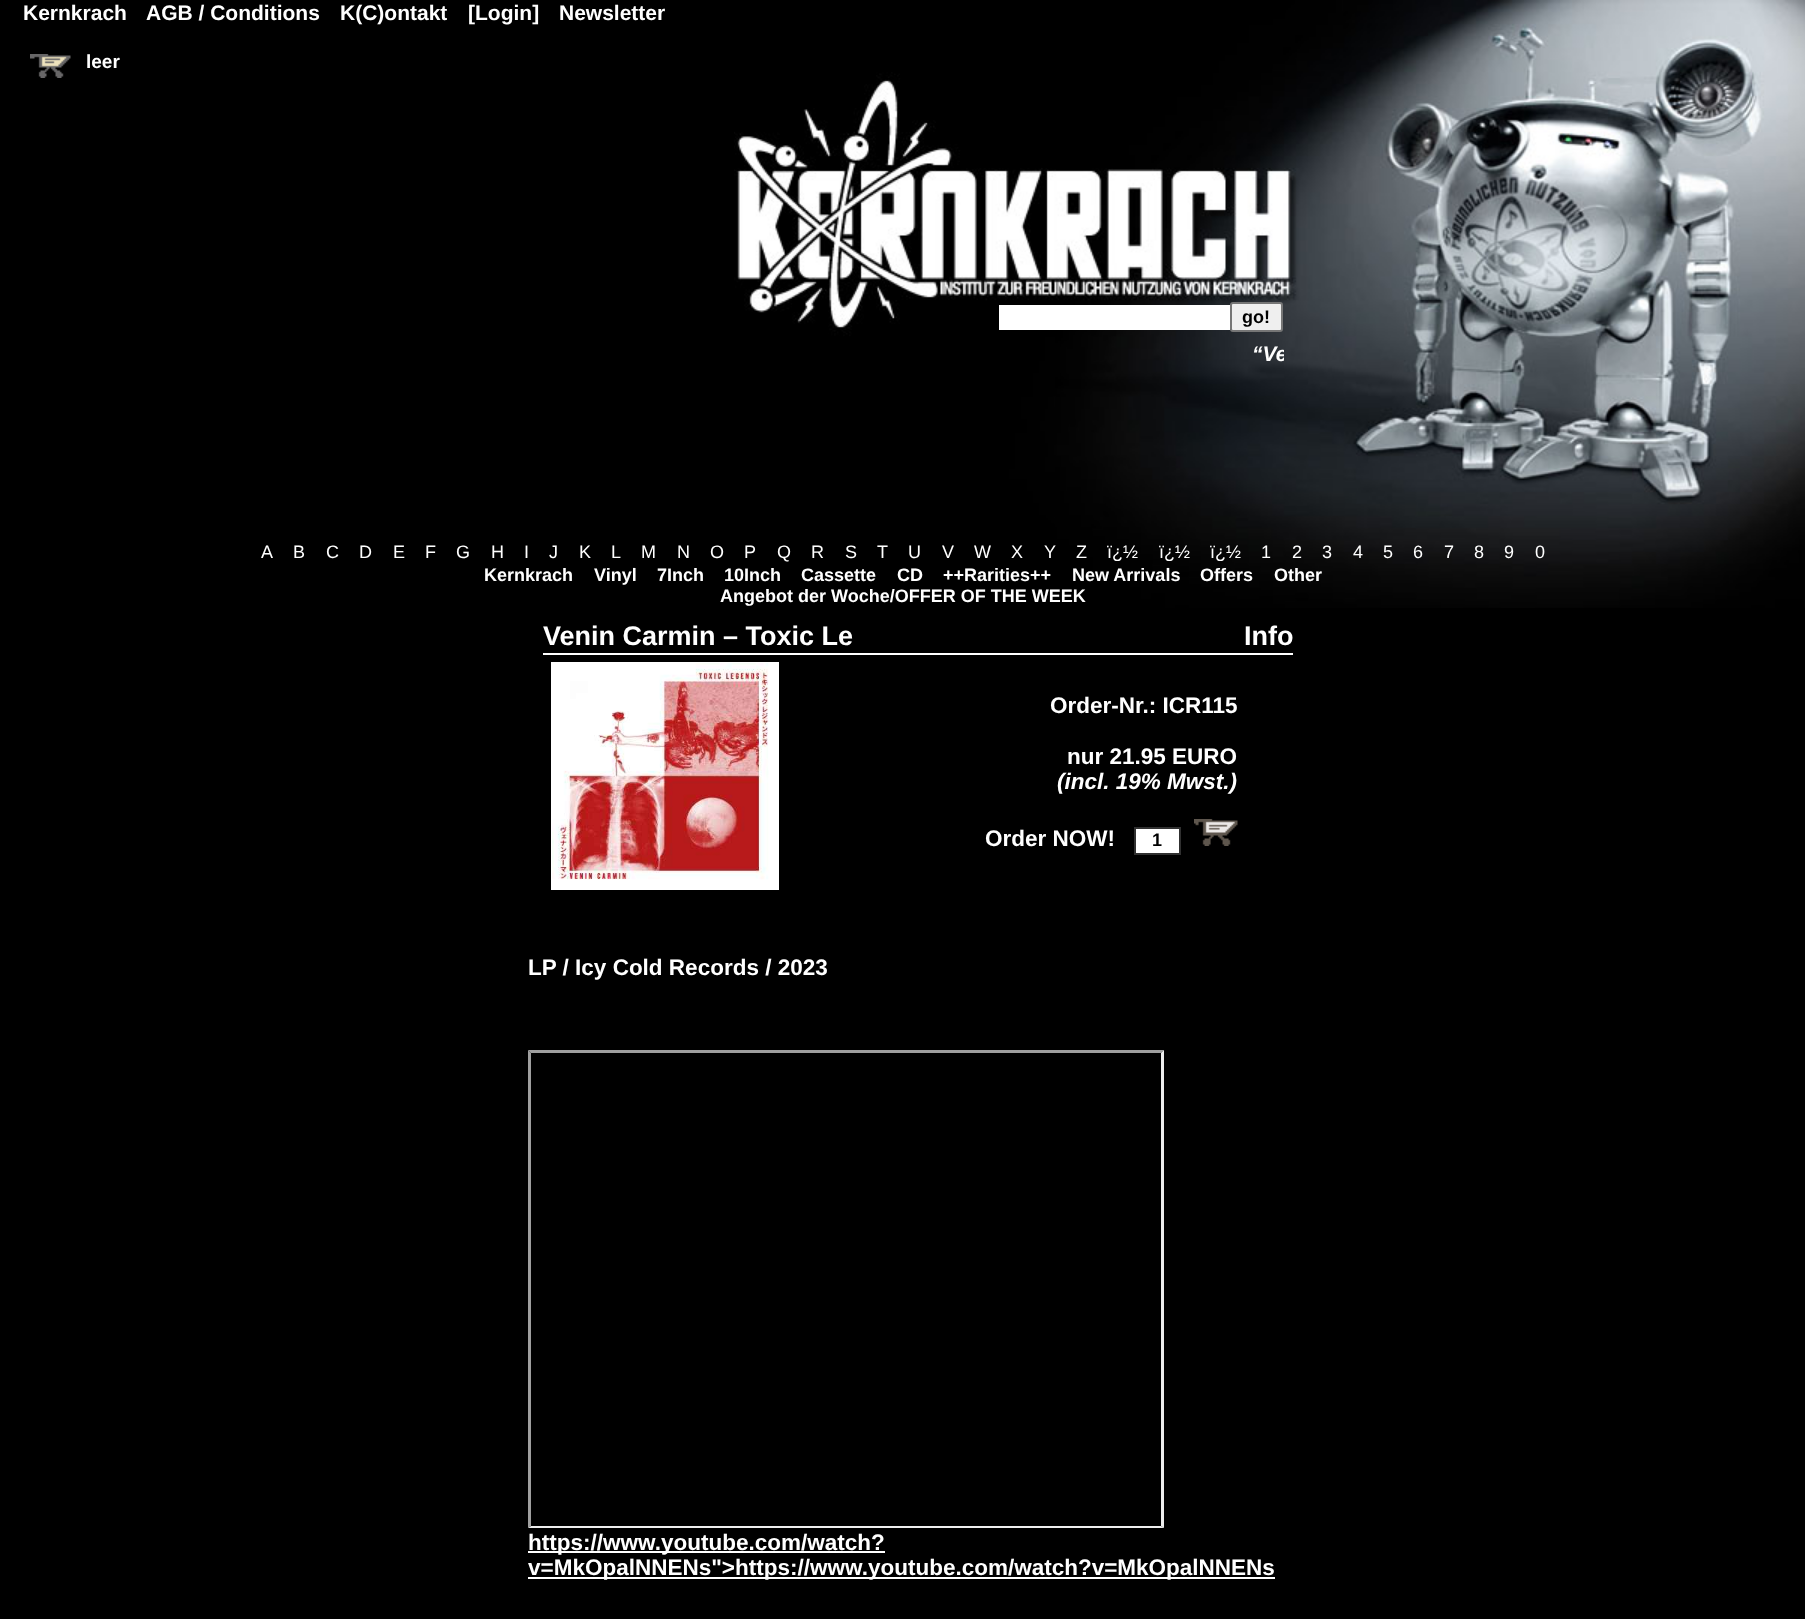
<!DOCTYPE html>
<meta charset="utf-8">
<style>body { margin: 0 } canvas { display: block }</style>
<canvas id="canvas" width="1805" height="1619"></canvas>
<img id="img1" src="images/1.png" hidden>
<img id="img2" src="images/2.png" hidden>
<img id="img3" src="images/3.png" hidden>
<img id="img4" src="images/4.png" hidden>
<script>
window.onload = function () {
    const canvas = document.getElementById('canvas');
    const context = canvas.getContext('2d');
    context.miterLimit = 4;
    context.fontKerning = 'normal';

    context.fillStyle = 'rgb(0, 0, 0)';
    context.fillRect(0, 0, 1805, 1619);
    context.drawImage(document.getElementById('img1'), 30, 54, 41, 24);
    context.drawImage(document.getElementById('img2'), 734, 0, 1071, 608);
    context.fillStyle = 'rgb(255, 255, 255)';
    context.fillRect(999, 305, 231, 25);
    context.fillStyle = 'rgb(239, 239, 239)';
    context.beginPath();
    context.roundRect(1231, 303, 51, 28, 2);
    context.fill();
    context.strokeStyle = 'rgb(118, 118, 118)';
    context.lineWidth = 2;
    context.stroke();
    context.fillStyle = 'rgb(255, 255, 255)';
    context.fillRect(543, 653, 750, 2);
    context.strokeStyle = 'rgb(255, 255, 255)';
    context.strokeRect(552, 663, 226, 226);
    context.drawImage(document.getElementById('img3'), 552, 663, 225, 225);
    context.beginPath();
    context.rect(1135, 828, 45, 26);
    context.fill();
    context.strokeStyle = 'rgb(48, 48, 48)';
    context.stroke();
    context.drawImage(document.getElementById('img4'), 1194, 819, 44, 27);
    context.fillRect(528, 1551, 357, 2);
    context.fillStyle = 'rgb(159, 159, 159)';
    context.beginPath();
    context.moveTo(528, 1050);
    context.lineTo(1164, 1050);
    context.lineTo(1161, 1053);
    context.lineTo(531, 1053);
    context.closePath();
    context.fill();
    context.fillStyle = 'rgb(238, 238, 238)';
    context.beginPath();
    context.moveTo(1164, 1050);
    context.lineTo(1164, 1528);
    context.lineTo(1161, 1526);
    context.lineTo(1161, 1053);
    context.closePath();
    context.fill();
    context.beginPath();
    context.moveTo(1164, 1528);
    context.lineTo(528, 1528);
    context.lineTo(531, 1526);
    context.lineTo(1161, 1526);
    context.closePath();
    context.fill();
    context.fillStyle = 'rgb(159, 159, 159)';
    context.beginPath();
    context.moveTo(528, 1528);
    context.lineTo(528, 1050);
    context.lineTo(531, 1053);
    context.lineTo(531, 1526);
    context.closePath();
    context.fill();
    context.fillStyle = 'rgb(255, 255, 255)';
    context.fillRect(528, 1577, 747, 2);
    context.font = 'bold 21px Liberation Sans';
    context.fillText('Kernkrach', 23, 20);
    context.fillText('AGB / Conditions', 146, 20);
    context.fillText('K(C)ontakt', 340, 20);
    context.fillText('[Login]', 468, 20);
    context.fillText('Newsletter', 559, 20);
    context.font = 'bold 19px Liberation Sans';
    context.fillText('leer', 86, 68);
    context.font = 'bold 18px Liberation Sans';
    context.fillStyle = 'rgb(0, 0, 0)';
    context.fillText('go!', 1242, 323);
    context.font = 'bold 27px Liberation Sans';
    context.fillStyle = 'rgb(255, 255, 255)';
    context.fillText('Venin Carmin – Toxic Le', 543, 645);
    context.fillText('Info', 1244, 645);
    context.font = 'bold 22.5px Liberation Sans';
    context.fillText('Order-Nr.: ICR115', 1050, 713);
    context.fillText('nur 21.95 EURO', 1067, 764);
    context.font = 'italic bold 22.5px Liberation Sans';
    context.fillText('(incl. 19% Mwst.)', 1057, 789);
    context.font = 'bold 22.5px Liberation Sans';
    context.fillText('Order NOW!', 985, 846);
    context.font = 'bold 18px Liberation Sans';
    context.fillStyle = 'rgb(0, 0, 0)';
    context.fillText('1', 1152, 846);
    context.font = 'bold 22.5px Liberation Sans';
    context.fillStyle = 'rgb(255, 255, 255)';
    context.fillText('LP / Icy Cold Records / 2023', 528, 975);
    context.fillText('https://www.youtube.com/watch?', 528, 1550);
    context.fillText('v=MkOpalNNENs">https://www.youtube.com/watch?v=MkOpalNNENs', 528, 1575);
    context.save();
    context.beginPath();
    context.rect(737, 327, 547, 53);
    context.clip();
    context.font = 'italic bold 21px Liberation Sans';
    context.fillText('“Ve', 1252, 361);
    context.restore();
    context.font = '18px Liberation Sans';
    context.fillText('A', 261, 558);
    context.fillText('B', 293, 558);
    context.fillText('C', 326, 558);
    context.fillText('D', 359, 558);
    context.fillText('E', 393, 558);
    context.fillText('F', 425, 558);
    context.fillText('G', 456, 558);
    context.fillText('H', 491, 558);
    context.fillText('I', 524, 558);
    context.fillText('J', 549, 558);
    context.fillText('K', 579, 558);
    context.fillText('L', 611, 558);
    context.fillText('M', 641, 558);
    context.fillText('N', 677, 558);
    context.fillText('O', 710, 558);
    context.fillText('P', 744, 558);
    context.fillText('Q', 777, 558);
    context.fillText('R', 811, 558);
    context.fillText('S', 845, 558);
    context.fillText('T', 877, 558);
    context.fillText('U', 908, 558);
    context.fillText('V', 942, 558);
    context.fillText('W', 974, 558);
    context.fillText('X', 1011, 558);
    context.fillText('Y', 1044, 558);
    context.fillText('Z', 1076, 558);
    context.fillText('ï¿½', 1107, 558);
    context.fillText('ï¿½', 1159, 558);
    context.fillText('ï¿½', 1210, 558);
    context.fillText('1', 1261, 558);
    context.fillText('2', 1292, 558);
    context.fillText('3', 1322, 558);
    context.fillText('4', 1353, 558);
    context.fillText('5', 1383, 558);
    context.fillText('6', 1413, 558);
    context.fillText('7', 1444, 558);
    context.fillText('8', 1474, 558);
    context.fillText('9', 1504, 558);
    context.fillText('0', 1535, 558);
    context.font = 'bold 18px Liberation Sans';
    context.fillText('Kernkrach', 484, 581);
    context.fillText('Vinyl', 594, 581);
    context.fillText('7Inch', 657, 581);
    context.fillText('10Inch', 724, 581);
    context.fillText('Cassette', 801, 581);
    context.fillText('CD', 897, 581);
    context.fillText('++Rarities++', 943, 581);
    context.fillText('New Arrivals', 1072, 581);
    context.fillText('Offers', 1200, 581);
    context.fillText('Other', 1274, 581);
    context.fillText('Angebot der Woche/OFFER OF THE WEEK', 720, 602);
};
</script>
